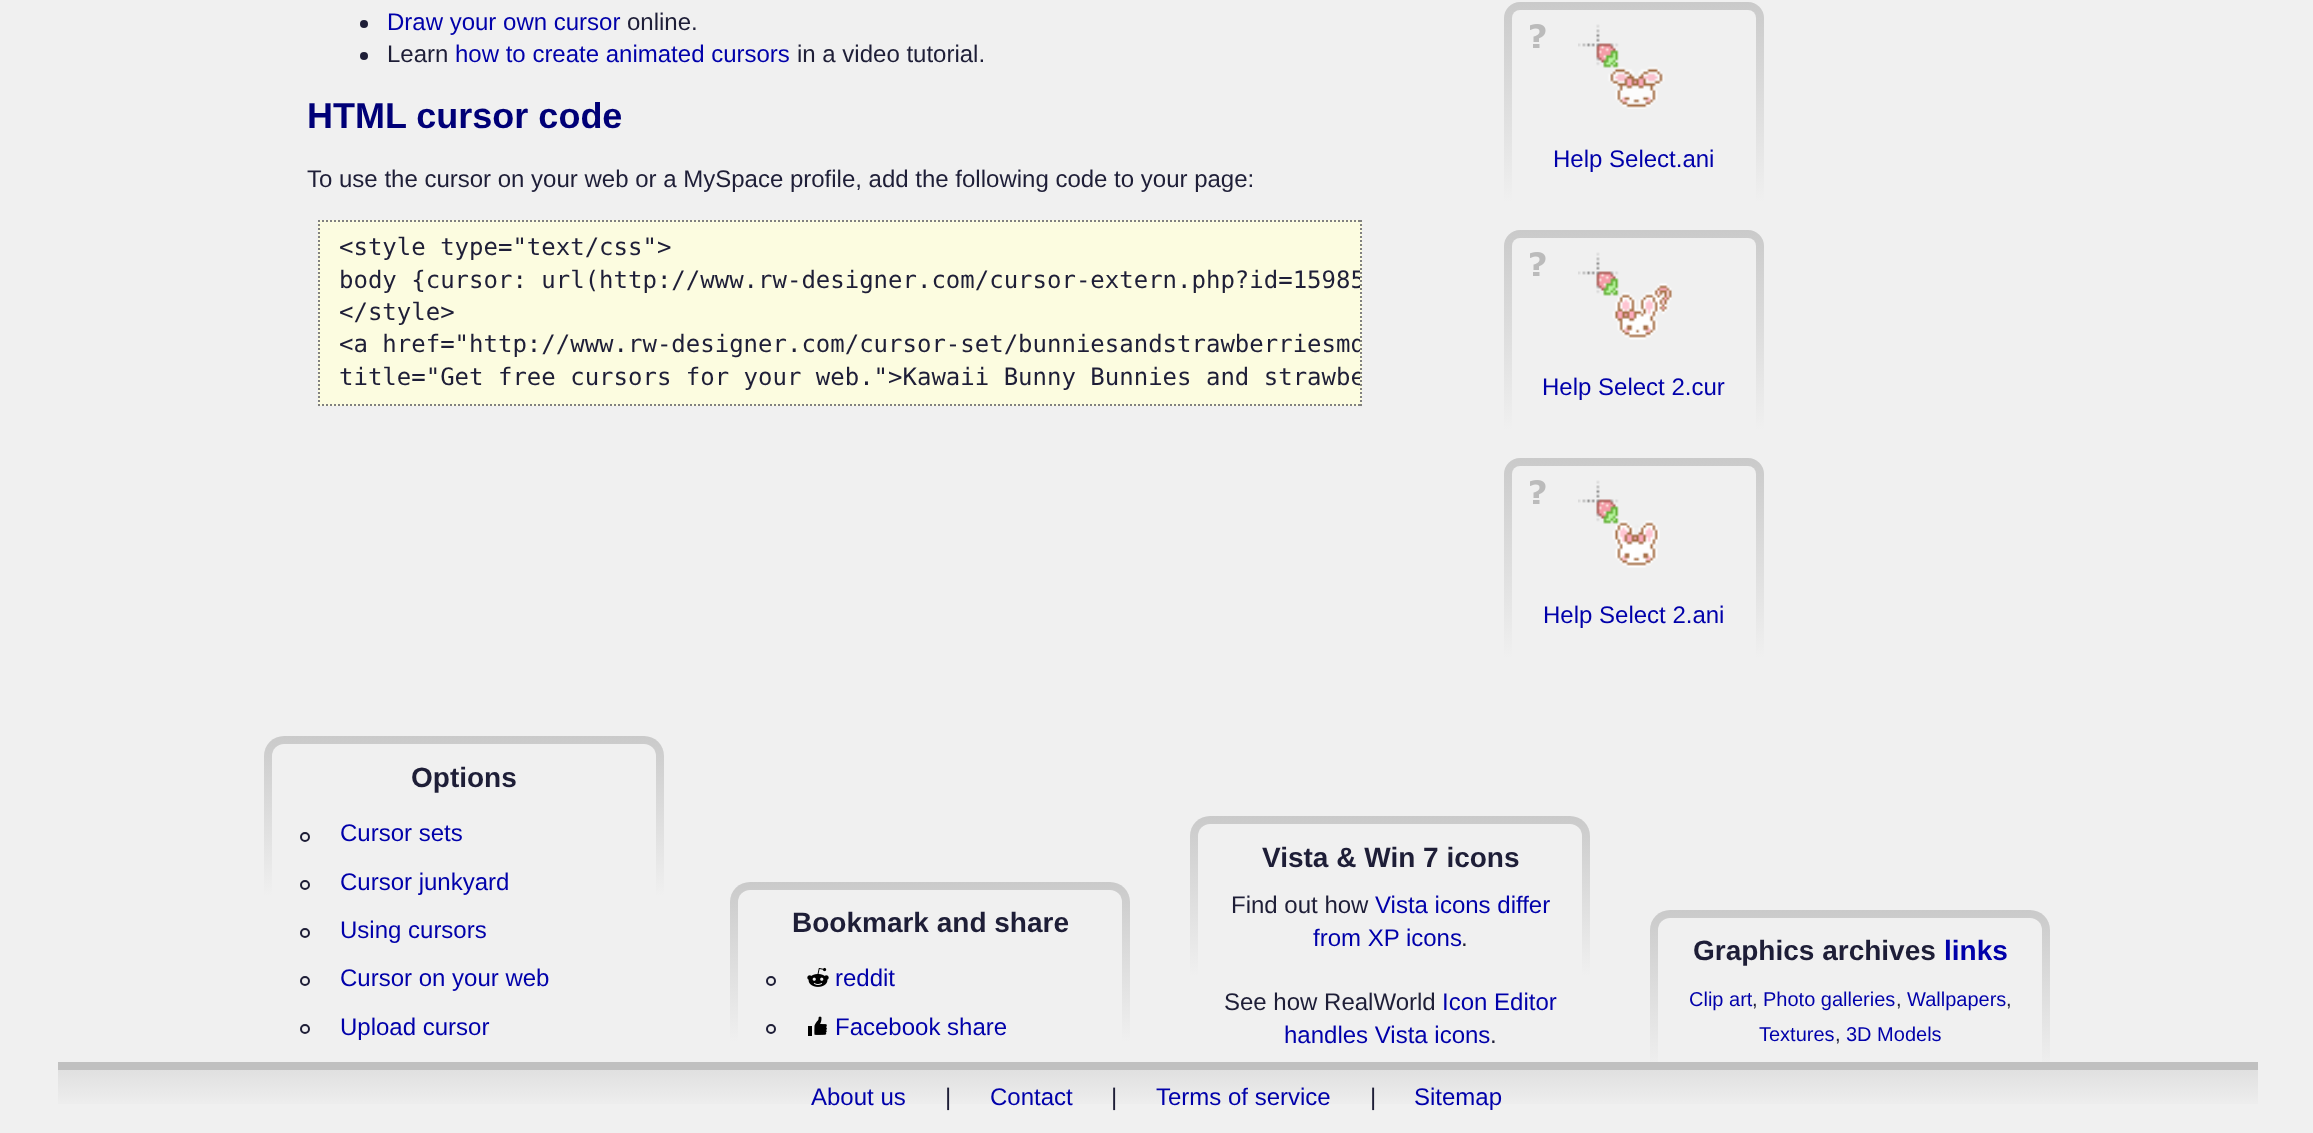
<!DOCTYPE html>
<meta charset="utf-8">
<style>body { margin: 0 } canvas { display: block }</style>
<canvas id="canvas" width="2313" height="1133"></canvas>
<img id="img1" src="images/1.png" hidden>
<img id="img2" src="images/2.png" hidden>
<img id="img3" src="images/3.png" hidden>
<img id="img4" src="images/4.png" hidden>
<img id="img5" src="images/5.png" hidden>
<img id="img6" src="images/6.png" hidden>
<script>
window.onload = function () {
    const canvas = document.getElementById('canvas');
    const context = canvas.getContext('2d');
    context.miterLimit = 4;
    context.fontKerning = 'normal';
    let gradient;

    context.fillStyle = 'rgb(240, 240, 240)';
    context.fillRect(0, 0, 2313, 1133);
    context.fillStyle = 'rgb(30, 30, 55)';
    context.beginPath();
    context.arc(364, 24, 4, 0, 2 * Math.PI);
    context.fill();
    context.beginPath();
    context.arc(364, 56, 4, 0, 2 * Math.PI);
    context.fill();
    context.fillStyle = 'rgb(252, 252, 224)';
    context.fillRect(318, 220, 1044, 186);
    context.beginPath();
    context.moveTo(318, 221);
    context.lineTo(1362, 221);
    context.strokeStyle = 'rgb(128, 128, 128)';
    context.lineWidth = 2;
    context.setLineDash([2, 2]);
    context.stroke();
    context.beginPath();
    context.moveTo(1361, 220);
    context.lineTo(1361, 406);
    context.stroke();
    context.beginPath();
    context.moveTo(318, 405);
    context.lineTo(1362, 405);
    context.stroke();
    context.beginPath();
    context.moveTo(319, 220);
    context.lineTo(319, 406);
    context.stroke();
    gradient = context.createLinearGradient(1634, 2, 1634, 202);
    gradient.addColorStop(0, 'rgb(202, 202, 202)');
    gradient.addColorStop(1, 'rgb(240, 240, 240)');
    context.fillStyle = gradient;
    context.beginPath();
    context.roundRect(1504, 2, 260, 200, [16, 16, 0, 0]);
    context.fill();
    context.fillStyle = 'rgb(240, 240, 240)';
    context.beginPath();
    context.roundRect(1512, 10, 244, 192, [8, 8, 0, 0]);
    context.fill();
    context.drawImage(document.getElementById('img1'), 1530, 24, 16, 24);
    context.drawImage(document.getElementById('img2'), 1578, 24, 87, 85);
    gradient = context.createLinearGradient(1634, 230, 1634, 430);
    gradient.addColorStop(0, 'rgb(202, 202, 202)');
    gradient.addColorStop(1, 'rgb(240, 240, 240)');
    context.fillStyle = gradient;
    context.beginPath();
    context.roundRect(1504, 230, 260, 200, [16, 16, 0, 0]);
    context.fill();
    context.fillStyle = 'rgb(240, 240, 240)';
    context.beginPath();
    context.roundRect(1512, 238, 244, 192, [8, 8, 0, 0]);
    context.fill();
    context.drawImage(document.getElementById('img1'), 1530, 252, 16, 24);
    context.drawImage(document.getElementById('img3'), 1578, 252, 94, 88);
    gradient = context.createLinearGradient(1634, 458, 1634, 658);
    gradient.addColorStop(0, 'rgb(202, 202, 202)');
    gradient.addColorStop(1, 'rgb(240, 240, 240)');
    context.fillStyle = gradient;
    context.beginPath();
    context.roundRect(1504, 458, 260, 200, [16, 16, 0, 0]);
    context.fill();
    context.fillStyle = 'rgb(240, 240, 240)';
    context.beginPath();
    context.roundRect(1512, 466, 244, 192, [8, 8, 0, 0]);
    context.fill();
    context.drawImage(document.getElementById('img1'), 1530, 480, 16, 24);
    context.drawImage(document.getElementById('img4'), 1578, 480, 82, 88);
    gradient = context.createLinearGradient(464, 736, 464, 896);
    gradient.addColorStop(0, 'rgb(202, 202, 202)');
    gradient.addColorStop(1, 'rgb(240, 240, 240)');
    context.fillStyle = gradient;
    context.beginPath();
    context.roundRect(264, 736, 400, 160, [20, 20, 0, 0]);
    context.fill();
    context.fillStyle = 'rgb(240, 240, 240)';
    context.beginPath();
    context.roundRect(272, 744, 384, 318, [12, 12, 0, 0]);
    context.fill();
    context.beginPath();
    context.arc(305, 837, 4, 0, 2 * Math.PI);
    context.strokeStyle = 'rgb(30, 30, 55)';
    context.setLineDash([]);
    context.stroke();
    context.beginPath();
    context.arc(305, 885, 4, 0, 2 * Math.PI);
    context.stroke();
    context.beginPath();
    context.arc(305, 933, 4, 0, 2 * Math.PI);
    context.stroke();
    context.beginPath();
    context.arc(305, 981, 4, 0, 2 * Math.PI);
    context.stroke();
    context.beginPath();
    context.arc(305, 1029, 4, 0, 2 * Math.PI);
    context.stroke();
    gradient = context.createLinearGradient(930, 882, 930, 1042);
    gradient.addColorStop(0, 'rgb(202, 202, 202)');
    gradient.addColorStop(1, 'rgb(240, 240, 240)');
    context.fillStyle = gradient;
    context.beginPath();
    context.roundRect(730, 882, 400, 160, [20, 20, 0, 0]);
    context.fill();
    context.fillStyle = 'rgb(240, 240, 240)';
    context.beginPath();
    context.roundRect(738, 890, 384, 172, [12, 12, 0, 0]);
    context.fill();
    context.beginPath();
    context.arc(771, 981, 4, 0, 2 * Math.PI);
    context.stroke();
    context.drawImage(document.getElementById('img5'), 807, 967, 22, 20);
    context.beginPath();
    context.arc(771, 1029, 4, 0, 2 * Math.PI);
    context.stroke();
    context.drawImage(document.getElementById('img6'), 808, 1016, 19, 20);
    gradient = context.createLinearGradient(1390, 816, 1390, 976);
    gradient.addColorStop(0, 'rgb(202, 202, 202)');
    gradient.addColorStop(1, 'rgb(240, 240, 240)');
    context.fillStyle = gradient;
    context.beginPath();
    context.roundRect(1190, 816, 400, 160, [20, 20, 0, 0]);
    context.fill();
    context.fillStyle = 'rgb(240, 240, 240)';
    context.beginPath();
    context.roundRect(1198, 824, 384, 238, [12, 12, 0, 0]);
    context.fill();
    gradient = context.createLinearGradient(1850, 910, 1850, 1070);
    gradient.addColorStop(0, 'rgb(202, 202, 202)');
    gradient.addColorStop(1, 'rgb(240, 240, 240)');
    context.fillStyle = gradient;
    context.beginPath();
    context.roundRect(1650, 910, 400, 152, [20, 20, 0, 0]);
    context.fill();
    context.fillStyle = 'rgb(240, 240, 240)';
    context.beginPath();
    context.roundRect(1658, 918, 384, 144, [12, 12, 0, 0]);
    context.fill();
    gradient = context.createLinearGradient(1158, 1062, 1158, 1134);
    gradient.addColorStop(0, 'rgb(192, 192, 192)');
    gradient.addColorStop(0.11, 'rgb(192, 192, 192)');
    gradient.addColorStop(0.11, 'rgb(224, 224, 224)');
    gradient.addColorStop(0.67, 'rgb(240, 240, 240)');
    context.fillStyle = gradient;
    context.fillRect(58, 1062, 2200, 42);
    context.font = '24px Liberation Sans';
    context.fillStyle = 'rgb(0, 0, 170)';
    context.fillText('Draw your own cursor', 387, 30);
    context.fillStyle = 'rgb(30, 30, 55)';
    context.fillText('online.', 627, 30);
    context.fillText('Learn', 387, 62);
    context.fillStyle = 'rgb(0, 0, 170)';
    context.fillText('how to create animated cursors', 455, 62);
    context.fillStyle = 'rgb(30, 30, 55)';
    context.fillText('in a video tutorial.', 797, 62);
    context.font = 'bold 36px Liberation Sans';
    context.fillStyle = 'rgb(0, 0, 119)';
    context.fillText('HTML cursor code', 307, 128);
    context.font = '24px Liberation Sans';
    context.fillStyle = 'rgb(30, 30, 55)';
    context.fillText('To use the cursor on your web or a MySpace profile, add the following code to your page:', 307, 187);
    context.font = '24px DejaVu Sans Mono';
    context.fillText('<style type="text/css">', 339, 255);
    context.save();
    context.beginPath();
    context.rect(320, 222, 1040, 182);
    context.clip();
    context.fillText('body {cursor: url(http://www.rw-designer.com/cursor-extern.php?id=15985', 339, 288);
    context.restore();
    context.fillText('<\/style>', 339, 320);
    context.save();
    context.beginPath();
    context.rect(320, 222, 1040, 182);
    context.clip();
    context.fillText('<a href="http://www.rw-designer.com/cursor-set/bunniesandstrawberriesmd', 339, 352);
    context.fillText('title="Get free cursors for your web.">Kawaii Bunny Bunnies and strawbe', 339, 385);
    context.restore();
    context.font = '24px Liberation Sans';
    context.fillStyle = 'rgb(0, 0, 170)';
    context.fillText('Help Select.ani', 1553, 167);
    context.fillText('Help Select 2.cur', 1542, 395);
    context.fillText('Help Select 2.ani', 1543, 623);
    context.font = 'bold 28px Liberation Sans';
    context.fillStyle = 'rgb(30, 30, 55)';
    context.fillText('Options', 411, 787);
    context.font = '24px Liberation Sans';
    context.fillStyle = 'rgb(0, 0, 170)';
    context.fillText('Cursor sets', 340, 841);
    context.fillText('Cursor junkyard', 340, 890);
    context.fillText('Using cursors', 340, 938);
    context.fillText('Cursor on your web', 340, 986);
    context.fillText('Upload cursor', 340, 1035);
    context.font = 'bold 28px Liberation Sans';
    context.fillStyle = 'rgb(30, 30, 55)';
    context.fillText('Bookmark and share', 792, 932);
    context.font = '24px Liberation Sans';
    context.fillStyle = 'rgb(0, 0, 170)';
    context.fillText('reddit', 835, 986);
    context.fillText('Facebook share', 835, 1035);
    context.font = 'bold 28px Liberation Sans';
    context.fillStyle = 'rgb(30, 30, 55)';
    context.fillText('Vista & Win 7 icons', 1262, 867);
    context.font = '24px Liberation Sans';
    context.fillText('Find out how', 1231, 913);
    context.fillStyle = 'rgb(0, 0, 170)';
    context.fillText('Vista icons differ', 1375, 913);
    context.fillText('from XP icons', 1313, 946);
    context.fillStyle = 'rgb(30, 30, 55)';
    context.fillText('.', 1461, 946);
    context.fillText('See how RealWorld', 1224, 1010);
    context.fillStyle = 'rgb(0, 0, 170)';
    context.fillText('Icon Editor', 1442, 1010);
    context.fillText('handles Vista icons', 1284, 1043);
    context.fillStyle = 'rgb(30, 30, 55)';
    context.fillText('.', 1490, 1043);
    context.font = 'bold 28px Liberation Sans';
    context.fillText('Graphics archives', 1693, 960);
    context.fillStyle = 'rgb(0, 0, 170)';
    context.fillText('links', 1944, 960);
    context.font = '20px Liberation Sans';
    context.fillText('Clip art', 1689, 1006);
    context.fillStyle = 'rgb(30, 30, 55)';
    context.fillText(',', 1752, 1006);
    context.fillStyle = 'rgb(0, 0, 170)';
    context.fillText('Photo galleries', 1763, 1006);
    context.fillStyle = 'rgb(30, 30, 55)';
    context.fillText(',', 1896, 1006);
    context.fillStyle = 'rgb(0, 0, 170)';
    context.fillText('Wallpapers', 1907, 1006);
    context.fillStyle = 'rgb(30, 30, 55)';
    context.fillText(',', 2006, 1006);
    context.fillStyle = 'rgb(0, 0, 170)';
    context.fillText('Textures', 1759, 1041);
    context.fillStyle = 'rgb(30, 30, 55)';
    context.fillText(',', 1835, 1041);
    context.fillStyle = 'rgb(0, 0, 170)';
    context.fillText('3D Models', 1846, 1041);
    context.font = '24px Liberation Sans';
    context.fillText('About us', 811, 1105);
    context.fillStyle = 'rgb(30, 30, 55)';
    context.fillText('|', 945, 1105);
    context.fillStyle = 'rgb(0, 0, 170)';
    context.fillText('Contact', 990, 1105);
    context.fillStyle = 'rgb(30, 30, 55)';
    context.fillText('|', 1111, 1105);
    context.fillStyle = 'rgb(0, 0, 170)';
    context.fillText('Terms of service', 1156, 1105);
    context.fillStyle = 'rgb(30, 30, 55)';
    context.fillText('|', 1370, 1105);
    context.fillStyle = 'rgb(0, 0, 170)';
    context.fillText('Sitemap', 1414, 1105);
};
</script>
